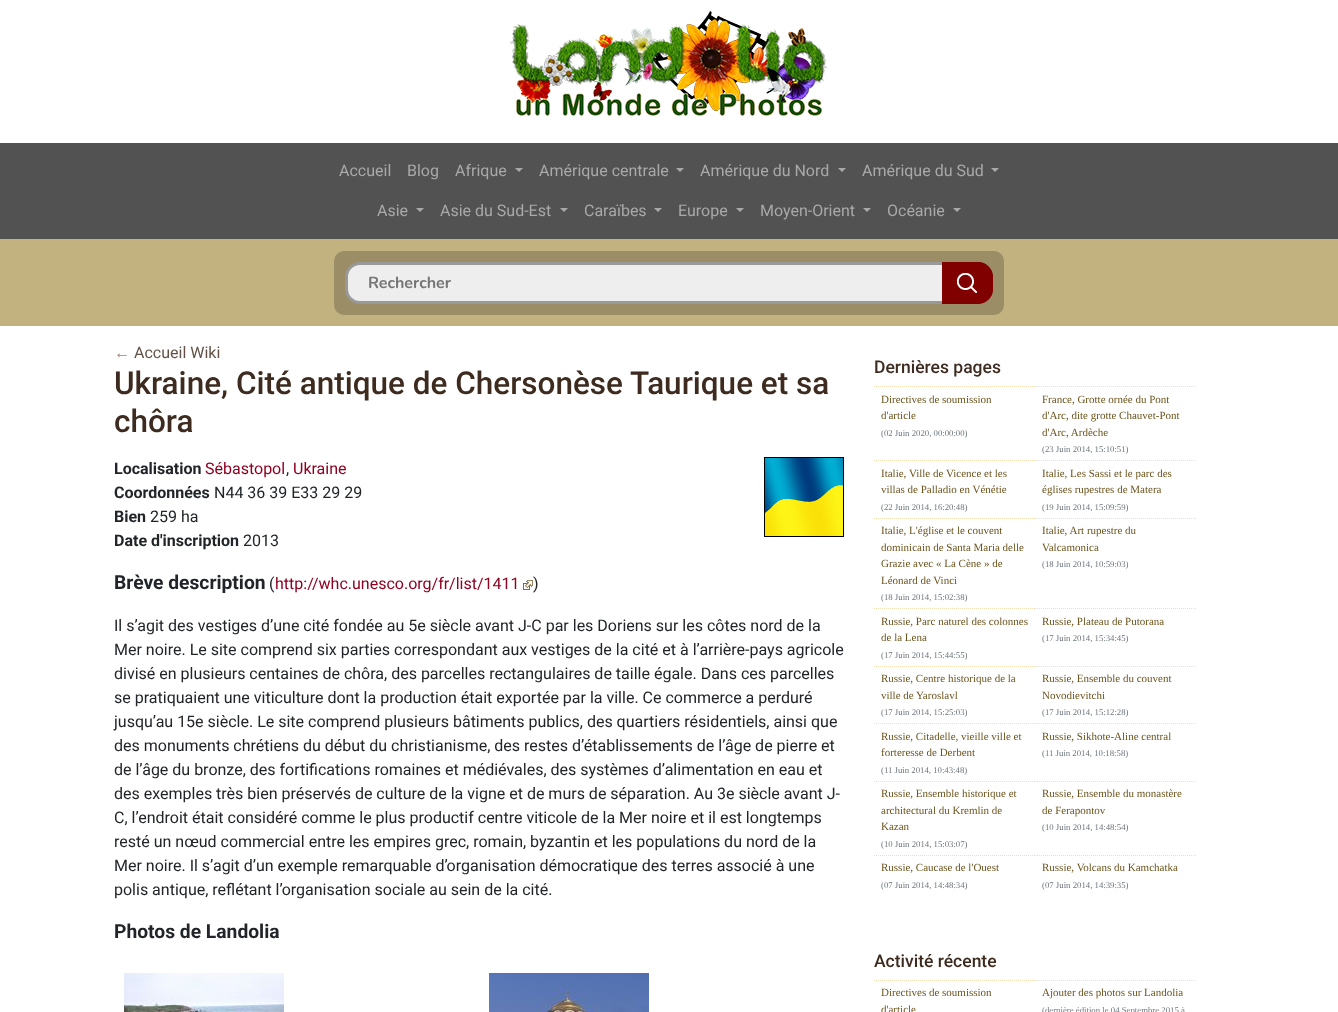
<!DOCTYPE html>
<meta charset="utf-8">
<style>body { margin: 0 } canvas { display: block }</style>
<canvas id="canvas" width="1338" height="1012"></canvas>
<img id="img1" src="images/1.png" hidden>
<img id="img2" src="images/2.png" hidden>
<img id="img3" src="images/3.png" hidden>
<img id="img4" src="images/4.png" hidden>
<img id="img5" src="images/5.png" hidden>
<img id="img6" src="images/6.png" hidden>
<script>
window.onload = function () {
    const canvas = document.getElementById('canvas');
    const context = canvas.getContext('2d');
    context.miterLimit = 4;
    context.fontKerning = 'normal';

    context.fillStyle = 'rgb(255, 255, 255)';
    context.fillRect(0, 0, 1338, 1012);
    context.drawImage(document.getElementById('img1'), 510, 11, 318, 105);
    context.fillStyle = 'rgb(82, 82, 82)';
    context.fillRect(0, 143, 1338, 96);
    context.fillStyle = 'rgb(169, 169, 169)';
    context.beginPath();
    context.moveTo(515, 168);
    context.lineTo(523, 168);
    context.lineTo(519, 172);
    context.closePath();
    context.fill();
    context.beginPath();
    context.moveTo(676, 168);
    context.lineTo(684, 168);
    context.lineTo(680, 172);
    context.closePath();
    context.fill();
    context.beginPath();
    context.moveTo(838, 168);
    context.lineTo(846, 168);
    context.lineTo(842, 172);
    context.closePath();
    context.fill();
    context.beginPath();
    context.moveTo(991, 168);
    context.lineTo(999, 168);
    context.lineTo(995, 172);
    context.closePath();
    context.fill();
    context.beginPath();
    context.moveTo(416, 208);
    context.lineTo(424, 208);
    context.lineTo(420, 212);
    context.closePath();
    context.fill();
    context.beginPath();
    context.moveTo(560, 208);
    context.lineTo(568, 208);
    context.lineTo(564, 212);
    context.closePath();
    context.fill();
    context.beginPath();
    context.moveTo(654, 208);
    context.lineTo(662, 208);
    context.lineTo(658, 212);
    context.closePath();
    context.fill();
    context.beginPath();
    context.moveTo(736, 208);
    context.lineTo(744, 208);
    context.lineTo(740, 212);
    context.closePath();
    context.fill();
    context.beginPath();
    context.moveTo(863, 208);
    context.lineTo(871, 208);
    context.lineTo(867, 212);
    context.closePath();
    context.fill();
    context.beginPath();
    context.moveTo(953, 208);
    context.lineTo(961, 208);
    context.lineTo(957, 212);
    context.closePath();
    context.fill();
    context.fillStyle = 'rgb(194, 178, 128)';
    context.fillRect(0, 239, 1338, 87);
    context.fillStyle = 'rgb(155, 142, 102)';
    context.beginPath();
    context.roundRect(334, 251, 670, 64, 10);
    context.fill();
    context.fillStyle = 'rgb(238, 238, 238)';
    context.beginPath();
    context.roundRect(346.5, 263.5, 645, 39, 13.5);
    context.fill();
    context.strokeStyle = 'rgb(153, 153, 153)';
    context.lineWidth = 3;
    context.stroke();
    context.fillStyle = 'rgb(128, 0, 0)';
    context.beginPath();
    context.roundRect(942, 262, 51, 42, [0, 15, 15, 0]);
    context.fill();
    context.drawImage(document.getElementById('img2'), 957, 273, 20, 20);
    context.beginPath();
    context.roundRect(942.5, 262.5, 50, 41, [0, 14.5, 14.5, 0]);
    context.strokeStyle = 'rgb(128, 0, 0)';
    context.lineWidth = 1;
    context.stroke();
    context.drawImage(document.getElementById('img3'), 764, 457, 80, 80);
    context.drawImage(document.getElementById('img4'), 523, 580, 10, 10);
    context.drawImage(document.getElementById('img5'), 124, 973, 160, 39);
    context.drawImage(document.getElementById('img6'), 489, 973, 160, 39);
    context.beginPath();
    context.moveTo(874, 386.5);
    context.lineTo(1035, 386.5);
    context.strokeStyle = 'rgb(245, 222, 179)';
    context.setLineDash([1, 1]);
    context.stroke();
    context.beginPath();
    context.moveTo(1035, 386.5);
    context.lineTo(1196, 386.5);
    context.stroke();
    context.beginPath();
    context.moveTo(874, 460.5);
    context.lineTo(1035, 460.5);
    context.stroke();
    context.beginPath();
    context.moveTo(1035, 460.5);
    context.lineTo(1196, 460.5);
    context.stroke();
    context.beginPath();
    context.moveTo(874, 518.5);
    context.lineTo(1035, 518.5);
    context.stroke();
    context.beginPath();
    context.moveTo(1035, 518.5);
    context.lineTo(1196, 518.5);
    context.stroke();
    context.beginPath();
    context.moveTo(874, 608.5);
    context.lineTo(1035, 608.5);
    context.stroke();
    context.beginPath();
    context.moveTo(1035, 608.5);
    context.lineTo(1196, 608.5);
    context.stroke();
    context.beginPath();
    context.moveTo(874, 666.5);
    context.lineTo(1035, 666.5);
    context.stroke();
    context.beginPath();
    context.moveTo(1035, 666.5);
    context.lineTo(1196, 666.5);
    context.stroke();
    context.beginPath();
    context.moveTo(874, 723.5);
    context.lineTo(1035, 723.5);
    context.stroke();
    context.beginPath();
    context.moveTo(1035, 723.5);
    context.lineTo(1196, 723.5);
    context.stroke();
    context.beginPath();
    context.moveTo(874, 781.5);
    context.lineTo(1035, 781.5);
    context.stroke();
    context.beginPath();
    context.moveTo(1035, 781.5);
    context.lineTo(1196, 781.5);
    context.stroke();
    context.beginPath();
    context.moveTo(874, 855.5);
    context.lineTo(1035, 855.5);
    context.stroke();
    context.beginPath();
    context.moveTo(1035, 855.5);
    context.lineTo(1196, 855.5);
    context.stroke();
    context.beginPath();
    context.moveTo(874, 980.5);
    context.lineTo(1035, 980.5);
    context.stroke();
    context.beginPath();
    context.moveTo(1035, 980.5);
    context.lineTo(1196, 980.5);
    context.stroke();
    context.font = '16px Roboto';
    context.fillStyle = 'rgb(169, 169, 169)';
    context.fillText('Accueil', 339, 176);
    context.fillText('Blog', 407, 176);
    context.fillText('Afrique', 455, 176);
    context.fillText('Amérique centrale', 539, 176);
    context.fillText('Amérique du Nord', 700, 176);
    context.fillText('Amérique du Sud', 862, 176);
    context.fillText('Asie', 377, 216);
    context.fillText('Asie du Sud-Est', 440, 216);
    context.fillText('Caraïbes', 584, 216);
    context.fillText('Europe', 678, 216);
    context.fillText('Moyen-Orient', 760, 216);
    context.fillText('Océanie', 887, 216);
    context.font = 'bold 16px Nunito';
    context.fillStyle = 'rgb(117, 117, 117)';
    context.fillText('Rechercher', 368, 288);
    context.font = '16px Liberation Sans';
    context.fillStyle = 'rgb(159, 129, 112)';
    context.fillText('←', 114, 358);
    context.font = '16px Roboto';
    context.fillStyle = 'rgb(99, 81, 71)';
    context.fillText('Accueil Wiki', 134, 358);
    context.font = '500 31.5px Roboto';
    context.fillStyle = 'rgb(61, 43, 31)';
    context.fillText('Ukraine, Cité antique de Chersonèse Taurique et sa', 114, 394);
    context.fillText('chôra', 114, 432);
    context.font = 'bold 16px Roboto';
    context.fillStyle = 'rgb(33, 37, 41)';
    context.fillText('Localisation', 114, 474);
    context.font = '16px Roboto';
    context.fillStyle = 'rgb(144, 0, 32)';
    context.fillText('Sébastopol', 205, 474);
    context.fillStyle = 'rgb(33, 37, 41)';
    context.fillText(',', 286, 474);
    context.fillStyle = 'rgb(144, 0, 32)';
    context.fillText('Ukraine', 293, 474);
    context.font = 'bold 16px Roboto';
    context.fillStyle = 'rgb(33, 37, 41)';
    context.fillText('Coordonnées', 114, 498);
    context.font = '16px Roboto';
    context.fillText('N44 36 39 E33 29 29', 214, 498);
    context.font = 'bold 16px Roboto';
    context.fillText('Bien', 114, 522);
    context.font = '16px Roboto';
    context.fillText('259 ha', 150, 522);
    context.font = 'bold 16px Roboto';
    context.fillText('Date d\'inscription', 114, 546);
    context.font = '16px Roboto';
    context.fillText('2013', 243, 546);
    context.font = 'bold 19.25px Roboto';
    context.fillText('Brève description', 114, 589);
    context.font = '16px Roboto';
    context.fillText('(', 269, 589);
    context.fillStyle = 'rgb(144, 0, 32)';
    context.fillText('http://whc.unesco.org/fr/list/1411', 275, 589);
    context.fillStyle = 'rgb(33, 37, 41)';
    context.fillText(')', 533, 589);
    context.fillText('Il s’agit des vestiges d’une cité fondée au 5e siècle avant J-C par les Doriens sur les côtes nord de la', 114, 631);
    context.fillText('Mer noire. Le site comprend six parties correspondant aux vestiges de la cité et à l’arrière-pays agricole', 114, 655);
    context.fillText('divisé en plusieurs centaines de chôra, des parcelles rectangulaires de taille égale. Dans ces parcelles', 114, 679);
    context.fillText('se pratiquaient une viticulture dont la production était exportée par la ville. Ce commerce a perduré', 114, 703);
    context.fillText('jusqu’au 15e siècle. Le site comprend plusieurs bâtiments publics, des quartiers résidentiels, ainsi que', 114, 727);
    context.fillText('des monuments chrétiens du début du christianisme, des restes d’établissements de l’âge de pierre et', 114, 751);
    context.fillText('de l’âge du bronze, des fortifications romaines et médiévales, des systèmes d’alimentation en eau et', 114, 775);
    context.fillText('des exemples très bien préservés de culture de la vigne et de murs de séparation. Au 3e siècle avant J-', 114, 799);
    context.fillText('C, l’endroit était considéré comme le plus productif centre viticole de la Mer noire et il est longtemps', 114, 823);
    context.fillText('resté un nœud commercial entre les empires grec, romain, byzantin et les populations du nord de la', 114, 847);
    context.fillText('Mer noire. Il s’agit d’un exemple remarquable d’organisation démocratique des terres associé à une', 114, 871);
    context.fillText('polis antique, reflétant l’organisation sociale au sein de la cité.', 114, 895);
    context.font = 'bold 19.25px Roboto';
    context.fillText('Photos de Landolia', 114, 938);
    context.font = '500 17.5px Roboto';
    context.fillStyle = 'rgb(61, 43, 31)';
    context.fillText('Dernières pages', 874, 373);
    context.font = '11px Liberation Serif';
    context.fillStyle = 'rgb(108, 84, 30)';
    context.fillText('Directives de soumission', 881, 403);
    context.fillText('d\'article', 881, 419);
    context.font = '8.75px Liberation Serif';
    context.fillStyle = 'rgb(108, 117, 125)';
    context.fillText('(02 Juin 2020, 00:00:00)', 881, 436);
    context.font = '11px Liberation Serif';
    context.fillStyle = 'rgb(108, 84, 30)';
    context.fillText('France, Grotte ornée du Pont', 1042, 403);
    context.fillText('d\'Arc, dite grotte Chauvet-Pont', 1042, 419);
    context.fillText('d\'Arc, Ardèche', 1042, 436);
    context.font = '8.75px Liberation Serif';
    context.fillStyle = 'rgb(108, 117, 125)';
    context.fillText('(23 Juin 2014, 15:10:51)', 1042, 452);
    context.font = '11px Liberation Serif';
    context.fillStyle = 'rgb(108, 84, 30)';
    context.fillText('Italie, Ville de Vicence et les', 881, 477);
    context.fillText('villas de Palladio en Vénétie', 881, 493);
    context.font = '8.75px Liberation Serif';
    context.fillStyle = 'rgb(108, 117, 125)';
    context.fillText('(22 Juin 2014, 16:20:48)', 881, 510);
    context.font = '11px Liberation Serif';
    context.fillStyle = 'rgb(108, 84, 30)';
    context.fillText('Italie, Les Sassi et le parc des', 1042, 477);
    context.fillText('églises rupestres de Matera', 1042, 493);
    context.font = '8.75px Liberation Serif';
    context.fillStyle = 'rgb(108, 117, 125)';
    context.fillText('(19 Juin 2014, 15:09:59)', 1042, 510);
    context.font = '11px Liberation Serif';
    context.fillStyle = 'rgb(108, 84, 30)';
    context.fillText('Italie, L\'église et le couvent', 881, 534);
    context.fillText('dominicain de Santa Maria delle', 881, 551);
    context.fillText('Grazie avec « La Cène » de', 881, 567);
    context.fillText('Léonard de Vinci', 881, 584);
    context.font = '8.75px Liberation Serif';
    context.fillStyle = 'rgb(108, 117, 125)';
    context.fillText('(18 Juin 2014, 15:02:38)', 881, 600);
    context.font = '11px Liberation Serif';
    context.fillStyle = 'rgb(108, 84, 30)';
    context.fillText('Italie, Art rupestre du', 1042, 534);
    context.fillText('Valcamonica', 1042, 551);
    context.font = '8.75px Liberation Serif';
    context.fillStyle = 'rgb(108, 117, 125)';
    context.fillText('(18 Juin 2014, 10:59:03)', 1042, 567);
    context.font = '11px Liberation Serif';
    context.fillStyle = 'rgb(108, 84, 30)';
    context.fillText('Russie, Parc naturel des colonnes', 881, 625);
    context.fillText('de la Lena', 881, 641);
    context.font = '8.75px Liberation Serif';
    context.fillStyle = 'rgb(108, 117, 125)';
    context.fillText('(17 Juin 2014, 15:44:55)', 881, 658);
    context.font = '11px Liberation Serif';
    context.fillStyle = 'rgb(108, 84, 30)';
    context.fillText('Russie, Plateau de Putorana', 1042, 625);
    context.font = '8.75px Liberation Serif';
    context.fillStyle = 'rgb(108, 117, 125)';
    context.fillText('(17 Juin 2014, 15:34:45)', 1042, 641);
    context.font = '11px Liberation Serif';
    context.fillStyle = 'rgb(108, 84, 30)';
    context.fillText('Russie, Centre historique de la', 881, 682);
    context.fillText('ville de Yaroslavl', 881, 699);
    context.font = '8.75px Liberation Serif';
    context.fillStyle = 'rgb(108, 117, 125)';
    context.fillText('(17 Juin 2014, 15:25:03)', 881, 715);
    context.font = '11px Liberation Serif';
    context.fillStyle = 'rgb(108, 84, 30)';
    context.fillText('Russie, Ensemble du couvent', 1042, 682);
    context.fillText('Novodievitchi', 1042, 699);
    context.font = '8.75px Liberation Serif';
    context.fillStyle = 'rgb(108, 117, 125)';
    context.fillText('(17 Juin 2014, 15:12:28)', 1042, 715);
    context.font = '11px Liberation Serif';
    context.fillStyle = 'rgb(108, 84, 30)';
    context.fillText('Russie, Citadelle, vieille ville et', 881, 740);
    context.fillText('forteresse de Derbent', 881, 756);
    context.font = '8.75px Liberation Serif';
    context.fillStyle = 'rgb(108, 117, 125)';
    context.fillText('(11 Juin 2014, 10:43:48)', 881, 773);
    context.font = '11px Liberation Serif';
    context.fillStyle = 'rgb(108, 84, 30)';
    context.fillText('Russie, Sikhote-Aline central', 1042, 740);
    context.font = '8.75px Liberation Serif';
    context.fillStyle = 'rgb(108, 117, 125)';
    context.fillText('(11 Juin 2014, 10:18:58)', 1042, 756);
    context.font = '11px Liberation Serif';
    context.fillStyle = 'rgb(108, 84, 30)';
    context.fillText('Russie, Ensemble historique et', 881, 797);
    context.fillText('architectural du Kremlin de', 881, 814);
    context.fillText('Kazan', 881, 830);
    context.font = '8.75px Liberation Serif';
    context.fillStyle = 'rgb(108, 117, 125)';
    context.fillText('(10 Juin 2014, 15:03:07)', 881, 847);
    context.font = '11px Liberation Serif';
    context.fillStyle = 'rgb(108, 84, 30)';
    context.fillText('Russie, Ensemble du monastère', 1042, 797);
    context.fillText('de Ferapontov', 1042, 814);
    context.font = '8.75px Liberation Serif';
    context.fillStyle = 'rgb(108, 117, 125)';
    context.fillText('(10 Juin 2014, 14:48:54)', 1042, 830);
    context.font = '11px Liberation Serif';
    context.fillStyle = 'rgb(108, 84, 30)';
    context.fillText('Russie, Caucase de l\'Ouest', 881, 871);
    context.font = '8.75px Liberation Serif';
    context.fillStyle = 'rgb(108, 117, 125)';
    context.fillText('(07 Juin 2014, 14:48:34)', 881, 888);
    context.font = '11px Liberation Serif';
    context.fillStyle = 'rgb(108, 84, 30)';
    context.fillText('Russie, Volcans du Kamchatka', 1042, 871);
    context.font = '8.75px Liberation Serif';
    context.fillStyle = 'rgb(108, 117, 125)';
    context.fillText('(07 Juin 2014, 14:39:35)', 1042, 888);
    context.font = '500 17.5px Roboto';
    context.fillStyle = 'rgb(61, 43, 31)';
    context.fillText('Activité récente', 874, 967);
    context.font = '11px Liberation Serif';
    context.fillStyle = 'rgb(108, 84, 30)';
    context.fillText('Directives de soumission', 881, 996);
    context.fillText('d\'article', 881, 1013);
    context.fillText('Ajouter des photos sur Landolia', 1042, 996);
    context.font = '8.75px Liberation Serif';
    context.fillStyle = 'rgb(108, 117, 125)';
    context.fillText('(dernière édition le 04 Septembre 2015 à', 1042, 1013);
};
</script>
